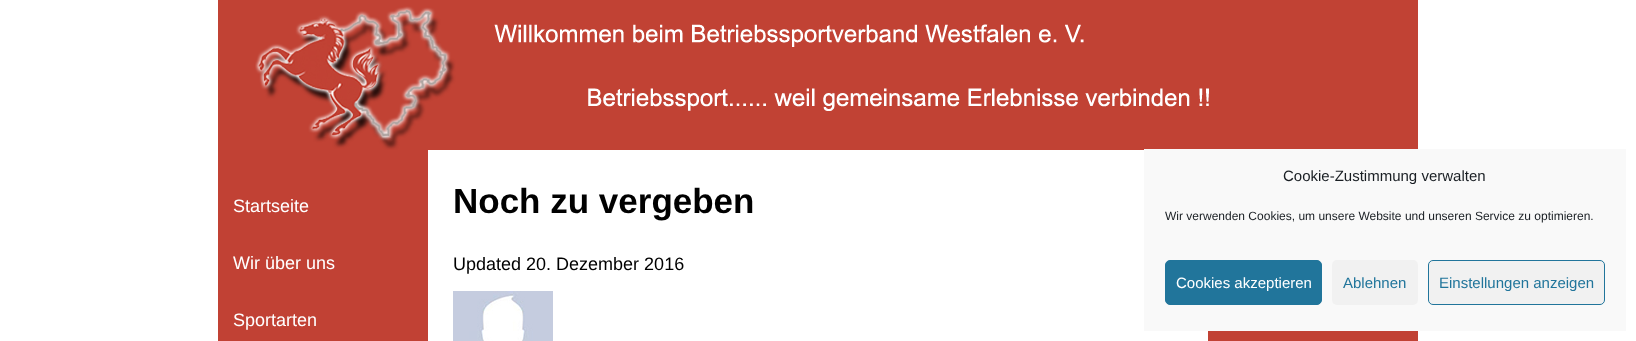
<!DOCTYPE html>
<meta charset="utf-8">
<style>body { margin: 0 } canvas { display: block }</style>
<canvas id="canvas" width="1636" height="341"></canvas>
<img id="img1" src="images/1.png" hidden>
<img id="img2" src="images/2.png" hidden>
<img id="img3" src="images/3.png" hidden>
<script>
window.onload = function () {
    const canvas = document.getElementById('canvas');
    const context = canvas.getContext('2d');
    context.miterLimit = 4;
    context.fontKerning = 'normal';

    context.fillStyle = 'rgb(255, 255, 255)';
    context.fillRect(0, 0, 1636, 341);
    context.fillStyle = 'rgb(193, 66, 52)';
    context.fillRect(218, 0, 1200, 150);
    context.drawImage(document.getElementById('img1'), 255, 6, 954, 144);
    context.drawImage(document.getElementById('img2'), 218, 150, 1200, 191);
    context.drawImage(document.getElementById('img3'), 453, 291, 100, 50);
    context.fillStyle = 'rgb(249, 249, 249)';
    context.fillRect(1144, 149, 482, 182);
    context.fillStyle = 'rgb(33, 117, 155)';
    context.beginPath();
    context.roundRect(1165.5, 260.5, 156, 44, 4.5);
    context.fill();
    context.strokeStyle = 'rgb(33, 117, 155)';
    context.stroke();
    context.fillStyle = 'rgb(241, 241, 241)';
    context.beginPath();
    context.roundRect(1332, 260, 86, 45, 5);
    context.fill();
    context.beginPath();
    context.roundRect(1428.5, 260.5, 176, 44, 4.5);
    context.fill();
    context.stroke();
    context.font = '18px Liberation Sans';
    context.fillStyle = 'rgb(255, 255, 255)';
    context.fillText('Startseite', 233, 212);
    context.fillText('Wir über uns', 233, 269);
    context.fillText('Sportarten', 233, 326);
    context.font = 'bold 35px Liberation Sans';
    context.fillStyle = 'rgb(0, 0, 0)';
    context.fillText('Noch zu vergeben', 453, 213);
    context.font = '18px Liberation Sans';
    context.fillText('Updated 20. Dezember 2016', 453, 270);
    context.font = '15px Liberation Sans';
    context.fillStyle = 'rgb(25, 30, 35)';
    context.fillText('Cookie-Zustimmung verwalten', 1283, 181);
    context.font = '12px Liberation Sans';
    context.fillText('Wir verwenden Cookies, um unsere Website und unseren Service zu optimieren.', 1165, 220);
    context.font = '15px Liberation Sans';
    context.fillStyle = 'rgb(255, 255, 255)';
    context.fillText('Cookies akzeptieren', 1176, 288);
    context.fillStyle = 'rgb(33, 117, 155)';
    context.fillText('Ablehnen', 1343, 288);
    context.fillText('Einstellungen anzeigen', 1439, 288);
};
</script>
